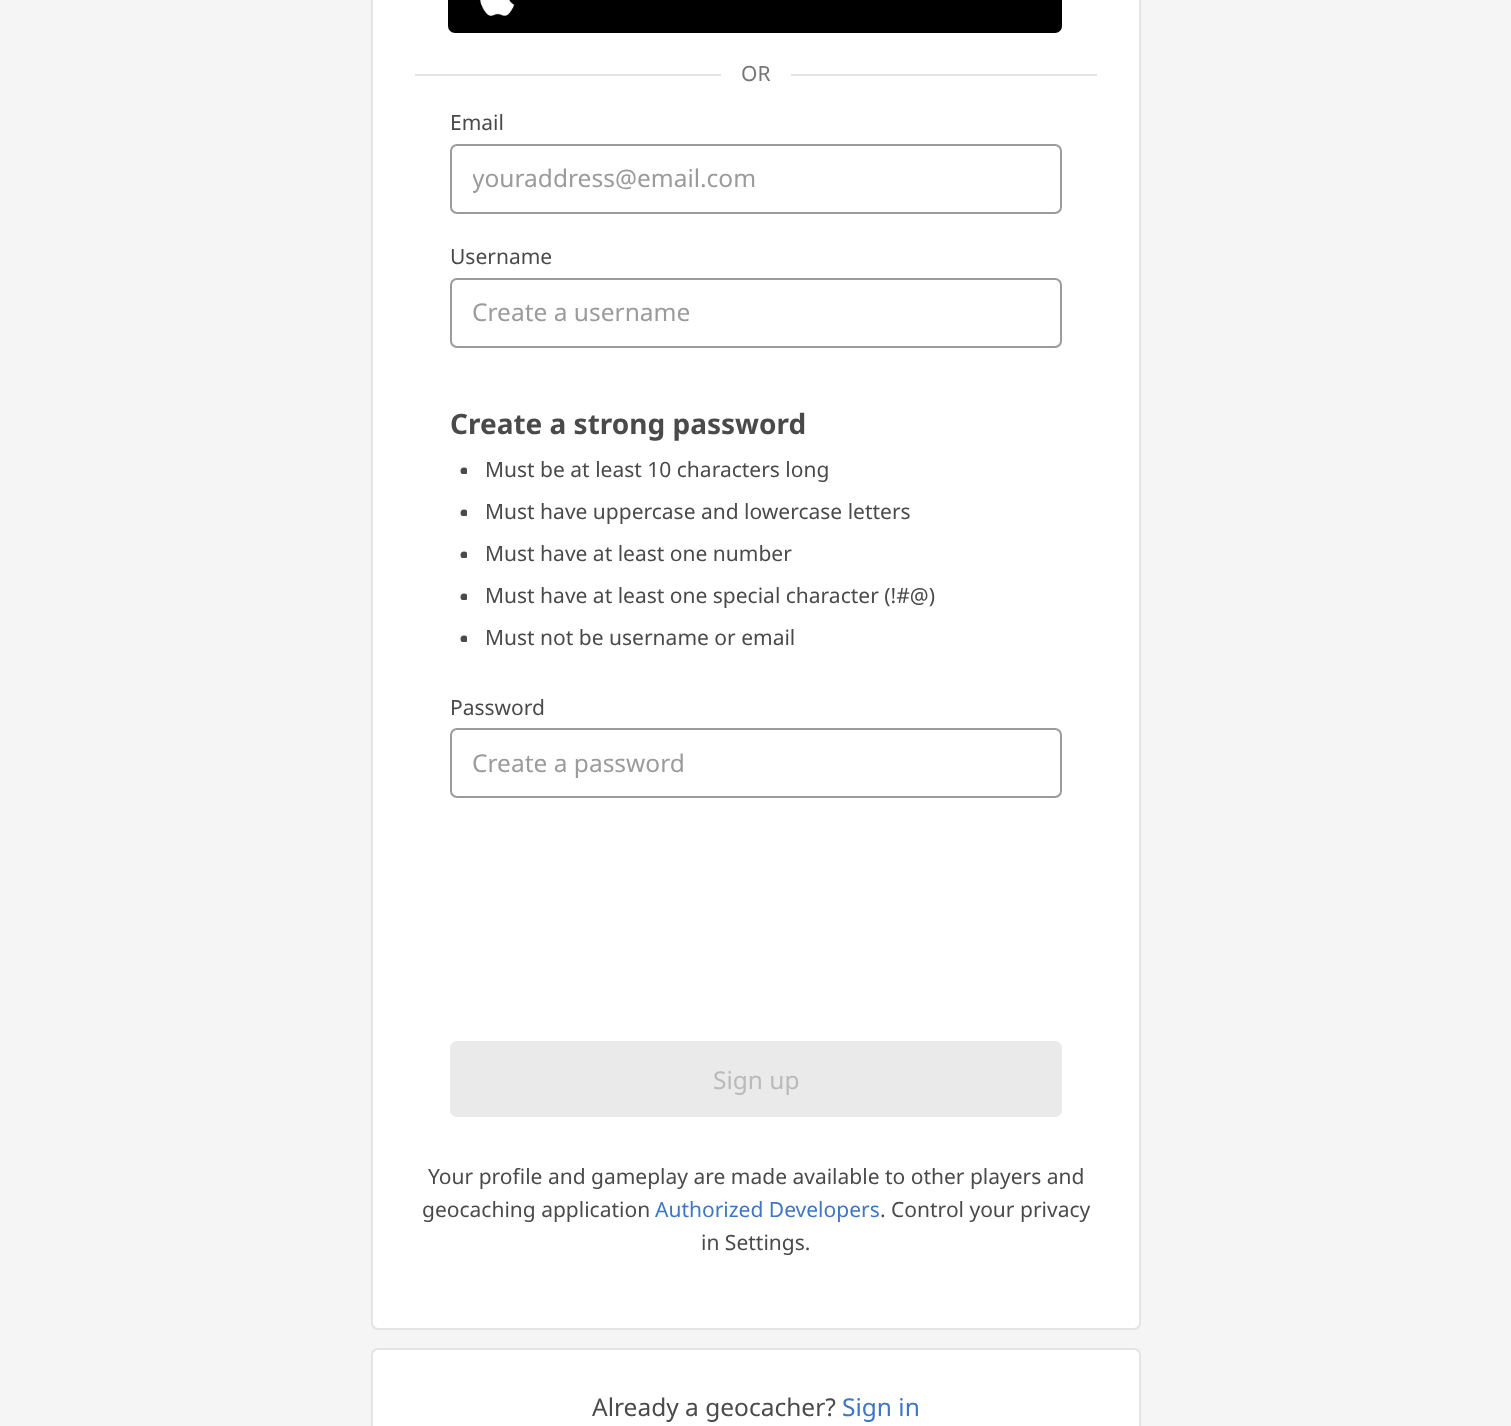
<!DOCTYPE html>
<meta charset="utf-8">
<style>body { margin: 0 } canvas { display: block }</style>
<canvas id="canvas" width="1511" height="1426"></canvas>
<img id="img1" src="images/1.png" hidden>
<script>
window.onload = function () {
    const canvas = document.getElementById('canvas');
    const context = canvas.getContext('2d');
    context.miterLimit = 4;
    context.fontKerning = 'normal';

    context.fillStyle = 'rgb(245, 245, 245)';
    context.fillRect(0, 0, 1511, 1426);
    context.fillStyle = 'rgb(255, 255, 255)';
    context.beginPath();
    context.roundRect(372, -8, 768, 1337, 6);
    context.fill();
    context.strokeStyle = 'rgb(228, 228, 228)';
    context.lineWidth = 2;
    context.stroke();
    context.fillStyle = 'rgb(0, 0, 0)';
    context.beginPath();
    context.roundRect(448, -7, 614, 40, 7);
    context.fill();
    context.drawImage(document.getElementById('img1'), 479, 0, 36, 16);
    context.fillStyle = 'rgb(228, 228, 228)';
    context.fillRect(415, 74, 306, 2);
    context.fillRect(791, 74, 306, 2);
    context.beginPath();
    context.roundRect(451, 145, 610, 68, 6);
    context.strokeStyle = 'rgb(155, 155, 155)';
    context.stroke();
    context.beginPath();
    context.roundRect(451, 279, 610, 68, 6);
    context.stroke();
    context.save();
    context.beginPath();
    context.rect(460, 467, 7, 7);
    context.clip();
    context.fillStyle = 'rgb(74, 74, 74)';
    context.beginPath();
    context.arc(464, 471, 3.5, 0, 2 * Math.PI);
    context.fill();
    context.restore();
    context.save();
    context.beginPath();
    context.rect(460, 509, 7, 7);
    context.clip();
    context.fillStyle = 'rgb(74, 74, 74)';
    context.beginPath();
    context.arc(464, 513, 3.5, 0, 2 * Math.PI);
    context.fill();
    context.restore();
    context.save();
    context.beginPath();
    context.rect(460, 551, 7, 7);
    context.clip();
    context.fillStyle = 'rgb(74, 74, 74)';
    context.beginPath();
    context.arc(464, 555, 3.5, 0, 2 * Math.PI);
    context.fill();
    context.restore();
    context.save();
    context.beginPath();
    context.rect(460, 593, 7, 7);
    context.clip();
    context.fillStyle = 'rgb(74, 74, 74)';
    context.beginPath();
    context.arc(464, 597, 3.5, 0, 2 * Math.PI);
    context.fill();
    context.restore();
    context.save();
    context.beginPath();
    context.rect(460, 635, 7, 7);
    context.clip();
    context.fillStyle = 'rgb(74, 74, 74)';
    context.beginPath();
    context.arc(464, 639, 3.5, 0, 2 * Math.PI);
    context.fill();
    context.restore();
    context.beginPath();
    context.roundRect(451, 729, 610, 68, 6);
    context.stroke();
    context.fillStyle = 'rgb(234, 234, 234)';
    context.beginPath();
    context.roundRect(450, 1041, 612, 76, 7);
    context.fill();
    context.fillStyle = 'rgb(255, 255, 255)';
    context.beginPath();
    context.roundRect(372, 1349, 768, 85, 6);
    context.fill();
    context.strokeStyle = 'rgb(228, 228, 228)';
    context.stroke();
    context.font = '21px Noto Sans';
    context.fillStyle = 'rgb(119, 119, 119)';
    context.fillText('OR', 741, 81);
    context.fillStyle = 'rgb(74, 74, 74)';
    context.fillText('Email', 450, 130);
    context.save();
    context.beginPath();
    context.rect(473, 161, 567, 33);
    context.clip();
    context.font = '24.5px Noto Sans';
    context.fillStyle = 'rgb(155, 155, 155)';
    context.fillText('youraddress@email.com', 472, 187);
    context.restore();
    context.fillText('Username', 450, 264);
    context.font = '24.5px Noto Sans';
    context.fillStyle = 'rgb(155, 155, 155)';
    context.fillText('Create a username', 472, 321);
    context.font = 'bold 28px Noto Sans';
    context.fillStyle = 'rgb(74, 74, 74)';
    context.fillText('Create a strong password', 450, 434);
    context.font = '21px Noto Sans';
    context.fillText('Must be at least 10 characters long', 485, 477);
    context.fillText('Must have uppercase and lowercase letters', 485, 519);
    context.fillText('Must have at least one number', 485, 561);
    context.fillText('Must have at least one special character (!#@)', 485, 603);
    context.fillText('Must not be username or email', 485, 645);
    context.fillText('Password', 450, 715);
    context.font = '24.5px Noto Sans';
    context.fillStyle = 'rgb(155, 155, 155)';
    context.fillText('Create a password', 472, 772);
    context.fillStyle = 'rgb(186, 186, 186)';
    context.fillText('Sign up', 713, 1089);
    context.font = '21px Noto Sans';
    context.fillStyle = 'rgb(74, 74, 74)';
    context.fillText('Your profile and gameplay are made available to other players and', 428, 1184);
    context.fillText('geocaching application', 422, 1217);
    context.fillStyle = 'rgb(61, 118, 197)';
    context.fillText('Authorized Developers', 655, 1217);
    context.fillStyle = 'rgb(74, 74, 74)';
    context.fillText('. Control your privacy', 880, 1217);
    context.fillText('in Settings.', 701, 1250);
    context.font = '24.5px Noto Sans';
    context.fillText('Already a geocacher?', 592, 1416);
    context.fillStyle = 'rgb(61, 118, 197)';
    context.fillText('Sign in', 842, 1416);
};
</script>
